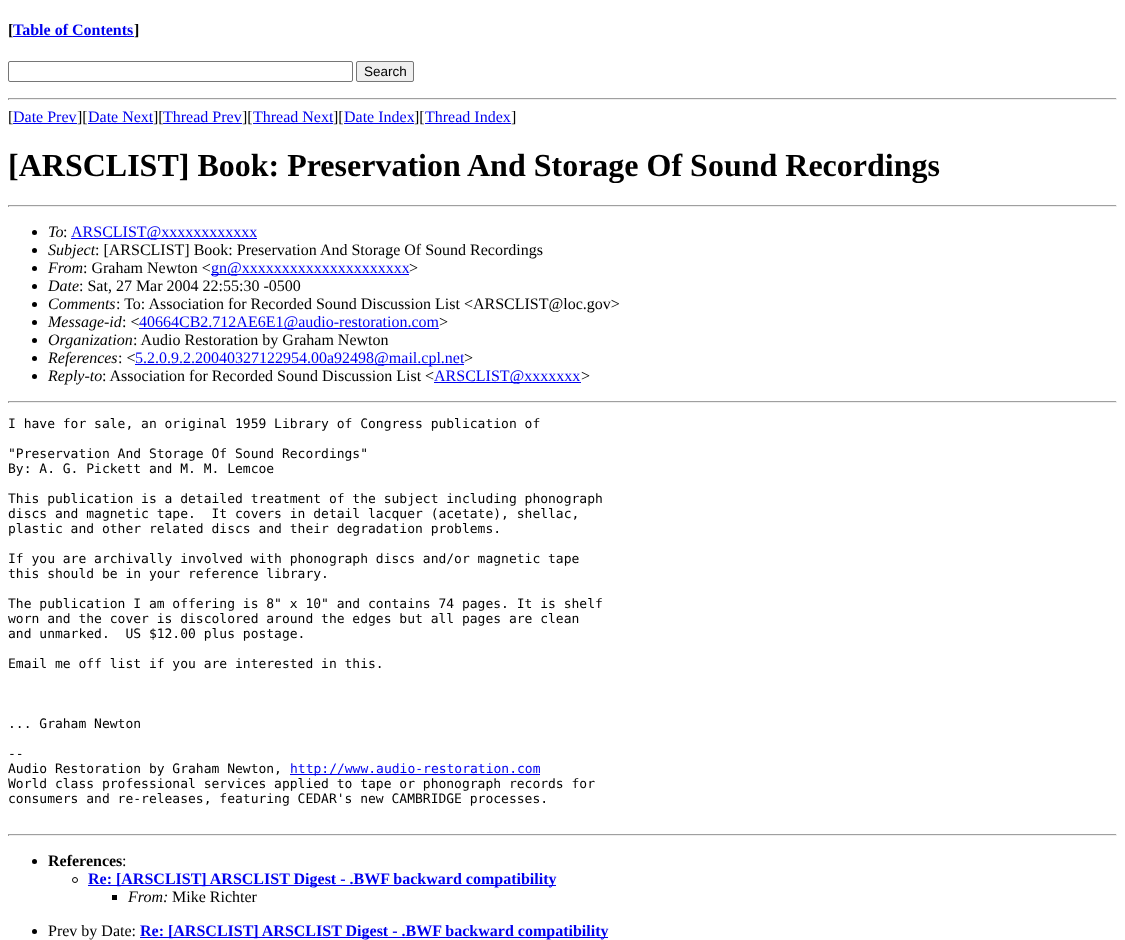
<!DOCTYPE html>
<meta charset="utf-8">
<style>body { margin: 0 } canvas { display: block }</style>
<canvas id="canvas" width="1125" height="940"></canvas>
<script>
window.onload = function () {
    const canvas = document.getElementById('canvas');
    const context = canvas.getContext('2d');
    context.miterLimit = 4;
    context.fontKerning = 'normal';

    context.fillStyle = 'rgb(255, 255, 255)';
    context.fillRect(0, 0, 1125, 940);
    context.fillStyle = 'rgb(0, 0, 238)';
    context.fillRect(13, 36, 121, 1);
    context.beginPath();
    context.roundRect(8.5, 61.5, 344, 20, 1.5);
    context.strokeStyle = 'rgb(118, 118, 118)';
    context.stroke();
    context.fillStyle = 'rgb(239, 239, 239)';
    context.beginPath();
    context.roundRect(356.5, 61.5, 57, 20, 1.5);
    context.fill();
    context.stroke();
    context.fillStyle = 'rgb(159, 159, 159)';
    context.fillRect(8, 98, 1109, 1);
    context.fillStyle = 'rgb(238, 238, 238)';
    context.fillRect(1116, 98, 1, 2);
    context.fillRect(8, 99, 1109, 1);
    context.fillStyle = 'rgb(159, 159, 159)';
    context.fillRect(8, 98, 1, 2);
    context.fillStyle = 'rgb(0, 0, 238)';
    context.fillRect(13, 123, 64, 1);
    context.fillRect(88, 123, 65, 1);
    context.fillRect(163, 123, 79, 1);
    context.fillRect(253, 123, 80, 1);
    context.fillRect(344, 123, 70, 1);
    context.fillRect(425, 123, 86, 1);
    context.fillStyle = 'rgb(159, 159, 159)';
    context.fillRect(8, 205, 1109, 1);
    context.fillStyle = 'rgb(238, 238, 238)';
    context.fillRect(1116, 205, 1, 2);
    context.fillRect(8, 206, 1109, 1);
    context.fillStyle = 'rgb(159, 159, 159)';
    context.fillRect(8, 205, 1, 2);
    context.fillStyle = 'rgb(0, 0, 0)';
    context.beginPath();
    context.arc(34.5, 232.5, 2.5, 0, 2 * Math.PI);
    context.fill();
    context.fillStyle = 'rgb(0, 0, 238)';
    context.fillRect(71, 238, 186, 1);
    context.fillStyle = 'rgb(0, 0, 0)';
    context.beginPath();
    context.arc(34.5, 250.5, 2.5, 0, 2 * Math.PI);
    context.fill();
    context.beginPath();
    context.arc(34.5, 268.5, 2.5, 0, 2 * Math.PI);
    context.fill();
    context.fillStyle = 'rgb(0, 0, 238)';
    context.fillRect(211, 274, 198, 1);
    context.fillStyle = 'rgb(0, 0, 0)';
    context.beginPath();
    context.arc(34.5, 286.5, 2.5, 0, 2 * Math.PI);
    context.fill();
    context.beginPath();
    context.arc(34.5, 304.5, 2.5, 0, 2 * Math.PI);
    context.fill();
    context.beginPath();
    context.arc(34.5, 322.5, 2.5, 0, 2 * Math.PI);
    context.fill();
    context.fillStyle = 'rgb(0, 0, 238)';
    context.fillRect(139, 328, 300, 1);
    context.fillStyle = 'rgb(0, 0, 0)';
    context.beginPath();
    context.arc(34.5, 340.5, 2.5, 0, 2 * Math.PI);
    context.fill();
    context.beginPath();
    context.arc(34.5, 358.5, 2.5, 0, 2 * Math.PI);
    context.fill();
    context.fillStyle = 'rgb(0, 0, 238)';
    context.fillRect(135, 364, 329, 1);
    context.fillStyle = 'rgb(0, 0, 0)';
    context.beginPath();
    context.arc(34.5, 376.5, 2.5, 0, 2 * Math.PI);
    context.fill();
    context.fillStyle = 'rgb(0, 0, 238)';
    context.fillRect(434, 382, 147, 1);
    context.fillStyle = 'rgb(159, 159, 159)';
    context.fillRect(8, 401, 1109, 1);
    context.fillStyle = 'rgb(238, 238, 238)';
    context.fillRect(1116, 401, 1, 2);
    context.fillRect(8, 402, 1109, 1);
    context.fillStyle = 'rgb(159, 159, 159)';
    context.fillRect(8, 401, 1, 2);
    context.fillStyle = 'rgb(0, 0, 238)';
    context.fillRect(290, 774, 250, 1);
    context.fillStyle = 'rgb(159, 159, 159)';
    context.fillRect(8, 834, 1109, 1);
    context.fillStyle = 'rgb(238, 238, 238)';
    context.fillRect(1116, 834, 1, 2);
    context.fillRect(8, 835, 1109, 1);
    context.fillStyle = 'rgb(159, 159, 159)';
    context.fillRect(8, 834, 1, 2);
    context.fillStyle = 'rgb(0, 0, 0)';
    context.beginPath();
    context.arc(34.5, 861.5, 2.5, 0, 2 * Math.PI);
    context.fill();
    context.beginPath();
    context.arc(75, 880, 2.5, 0, 2 * Math.PI);
    context.strokeStyle = 'rgb(0, 0, 0)';
    context.stroke();
    context.fillStyle = 'rgb(0, 0, 238)';
    context.fillRect(88, 885, 468, 1);
    context.fillStyle = 'rgb(0, 0, 0)';
    context.fillRect(112, 895, 5, 5);
    context.beginPath();
    context.arc(34.5, 931.5, 2.5, 0, 2 * Math.PI);
    context.fill();
    context.fillStyle = 'rgb(0, 0, 238)';
    context.fillRect(140, 937, 468, 1);
    context.font = 'bold 16px Liberation Serif';
    context.fillStyle = 'rgb(0, 0, 0)';
    context.fillText('[', 8, 35);
    context.fillStyle = 'rgb(0, 0, 238)';
    context.fillText('Table of Contents', 13, 35);
    context.fillStyle = 'rgb(0, 0, 0)';
    context.fillText(']', 134, 35);
    context.font = '13.5px Liberation Sans';
    context.fillText('Search', 364, 76);
    context.font = '16px Liberation Serif';
    context.fillText('[', 8, 122);
    context.fillStyle = 'rgb(0, 0, 238)';
    context.fillText('Date Prev', 13, 122);
    context.fillStyle = 'rgb(0, 0, 0)';
    context.fillText('][', 77, 122);
    context.fillStyle = 'rgb(0, 0, 238)';
    context.fillText('Date Next', 88, 122);
    context.fillStyle = 'rgb(0, 0, 0)';
    context.fillText('][', 153, 122);
    context.fillStyle = 'rgb(0, 0, 238)';
    context.fillText('Thread Prev', 163, 122);
    context.fillStyle = 'rgb(0, 0, 0)';
    context.fillText('][', 242, 122);
    context.fillStyle = 'rgb(0, 0, 238)';
    context.fillText('Thread Next', 253, 122);
    context.fillStyle = 'rgb(0, 0, 0)';
    context.fillText('][', 333, 122);
    context.fillStyle = 'rgb(0, 0, 238)';
    context.fillText('Date Index', 344, 122);
    context.fillStyle = 'rgb(0, 0, 0)';
    context.fillText('][', 414, 122);
    context.fillStyle = 'rgb(0, 0, 238)';
    context.fillText('Thread Index', 425, 122);
    context.fillStyle = 'rgb(0, 0, 0)';
    context.fillText(']', 511, 122);
    context.font = 'bold 32px Liberation Serif';
    context.fillText('[ARSCLIST] Book: Preservation And Storage Of Sound Recordings', 8, 176);
    context.font = 'italic 16px Liberation Serif';
    context.fillText('To', 48, 237);
    context.font = '16px Liberation Serif';
    context.fillText(':', 63, 237);
    context.fillStyle = 'rgb(0, 0, 238)';
    context.fillText('ARSCLIST@xxxxxxxxxxxx', 71, 237);
    context.font = 'italic 16px Liberation Serif';
    context.fillStyle = 'rgb(0, 0, 0)';
    context.fillText('Subject', 48, 255);
    context.font = '16px Liberation Serif';
    context.fillText(': [ARSCLIST] Book: Preservation And Storage Of Sound Recordings', 95, 255);
    context.font = 'italic 16px Liberation Serif';
    context.fillText('From', 48, 273);
    context.font = '16px Liberation Serif';
    context.fillText(': Graham Newton <', 83, 273);
    context.fillStyle = 'rgb(0, 0, 238)';
    context.fillText('gn@xxxxxxxxxxxxxxxxxxxxx', 211, 273);
    context.fillStyle = 'rgb(0, 0, 0)';
    context.fillText('>', 409, 273);
    context.font = 'italic 16px Liberation Serif';
    context.fillText('Date', 48, 291);
    context.font = '16px Liberation Serif';
    context.fillText(': Sat, 27 Mar 2004 22:55:30 -0500', 79, 291);
    context.font = 'italic 16px Liberation Serif';
    context.fillText('Comments', 48, 309);
    context.font = '16px Liberation Serif';
    context.fillText(': To: Association for Recorded Sound Discussion List <ARSCLIST@loc.gov>', 116, 309);
    context.font = 'italic 16px Liberation Serif';
    context.fillText('Message-id', 48, 327);
    context.font = '16px Liberation Serif';
    context.fillText(': <', 122, 327);
    context.fillStyle = 'rgb(0, 0, 238)';
    context.fillText('40664CB2.712AE6E1@audio-restoration.com', 139, 327);
    context.fillStyle = 'rgb(0, 0, 0)';
    context.fillText('>', 439, 327);
    context.font = 'italic 16px Liberation Serif';
    context.fillText('Organization', 48, 345);
    context.font = '16px Liberation Serif';
    context.fillText(': Audio Restoration by Graham Newton', 133, 345);
    context.font = 'italic 16px Liberation Serif';
    context.fillText('References', 48, 363);
    context.font = '16px Liberation Serif';
    context.fillText(': <', 118, 363);
    context.fillStyle = 'rgb(0, 0, 238)';
    context.fillText('5.2.0.9.2.20040327122954.00a92498@mail.cpl.net', 135, 363);
    context.fillStyle = 'rgb(0, 0, 0)';
    context.fillText('>', 464, 363);
    context.font = 'italic 16px Liberation Serif';
    context.fillText('Reply-to', 48, 381);
    context.font = '16px Liberation Serif';
    context.fillText(': Association for Recorded Sound Discussion List <', 102, 381);
    context.fillStyle = 'rgb(0, 0, 238)';
    context.fillText('ARSCLIST@xxxxxxx', 434, 381);
    context.fillStyle = 'rgb(0, 0, 0)';
    context.fillText('>', 581, 381);
    context.font = '13px DejaVu Sans Mono';
    context.fillText('I have for sale, an original 1959 Library of Congress publication of', 8, 428);
    context.fillText('"Preservation And Storage Of Sound Recordings"', 8, 458);
    context.fillText('By: A. G. Pickett and M. M. Lemcoe', 8, 473);
    context.fillText('This publication is a detailed treatment of the subject including phonograph', 8, 503);
    context.fillText('discs and magnetic tape.  It covers in detail lacquer (acetate), shellac,', 8, 518);
    context.fillText('plastic and other related discs and their degradation problems.', 8, 533);
    context.fillText('If you are archivally involved with phonograph discs and/or magnetic tape', 8, 563);
    context.fillText('this should be in your reference library.', 8, 578);
    context.fillText('The publication I am offering is 8" x 10" and contains 74 pages. It is shelf', 8, 608);
    context.fillText('worn and the cover is discolored around the edges but all pages are clean', 8, 623);
    context.fillText('and unmarked.  US $12.00 plus postage.', 8, 638);
    context.fillText('Email me off list if you are interested in this.', 8, 668);
    context.fillText('... Graham Newton', 8, 728);
    context.fillText('--', 8, 758);
    context.fillText('Audio Restoration by Graham Newton,', 8, 773);
    context.fillStyle = 'rgb(0, 0, 238)';
    context.fillText('http://www.audio-restoration.com', 290, 773);
    context.fillStyle = 'rgb(0, 0, 0)';
    context.fillText('World class professional services applied to tape or phonograph records for', 8, 788);
    context.fillText('consumers and re-releases, featuring CEDAR\'s new CAMBRIDGE processes.', 8, 803);
    context.font = 'bold 16px Liberation Serif';
    context.fillText('References', 48, 866);
    context.font = '16px Liberation Serif';
    context.fillText(':', 122, 866);
    context.font = 'bold 16px Liberation Serif';
    context.fillStyle = 'rgb(0, 0, 238)';
    context.fillText('Re: [ARSCLIST] ARSCLIST Digest - .BWF backward compatibility', 88, 884);
    context.font = 'italic 16px Liberation Serif';
    context.fillStyle = 'rgb(0, 0, 0)';
    context.fillText('From:', 128, 902);
    context.font = '16px Liberation Serif';
    context.fillText('Mike Richter', 172, 902);
    context.fillText('Prev by Date:', 48, 936);
    context.font = 'bold 16px Liberation Serif';
    context.fillStyle = 'rgb(0, 0, 238)';
    context.fillText('Re: [ARSCLIST] ARSCLIST Digest - .BWF backward compatibility', 140, 936);
};
</script>
